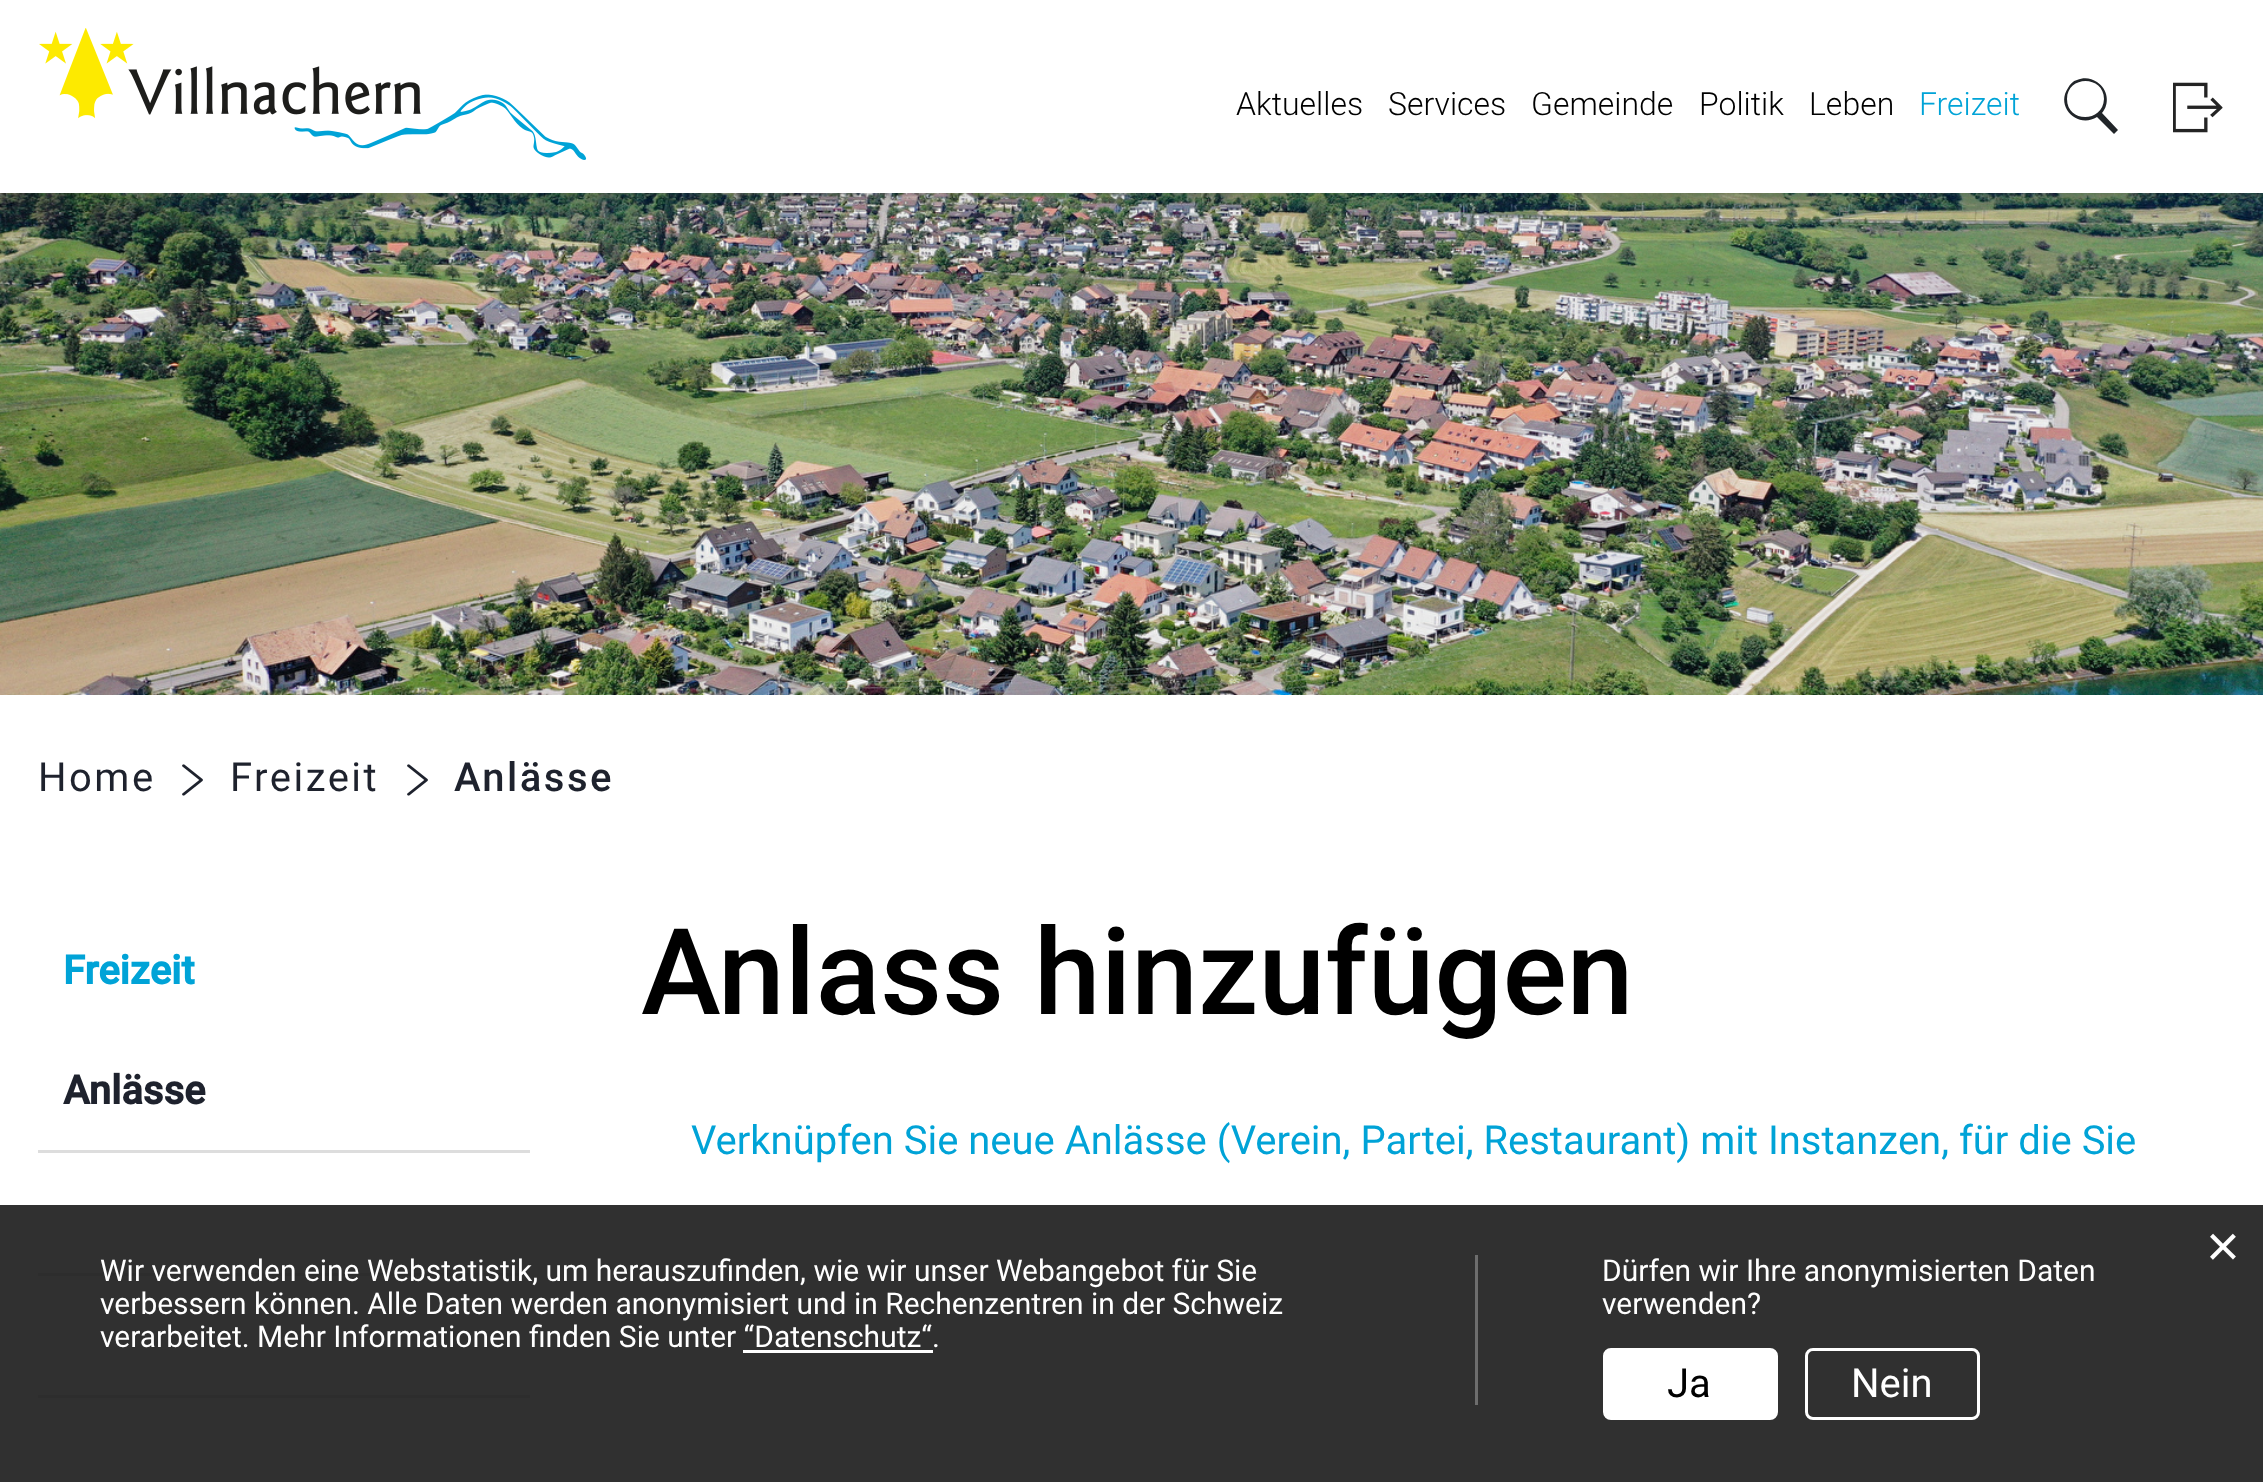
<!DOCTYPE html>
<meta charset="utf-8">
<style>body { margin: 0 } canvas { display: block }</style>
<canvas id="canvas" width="2263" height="1482"></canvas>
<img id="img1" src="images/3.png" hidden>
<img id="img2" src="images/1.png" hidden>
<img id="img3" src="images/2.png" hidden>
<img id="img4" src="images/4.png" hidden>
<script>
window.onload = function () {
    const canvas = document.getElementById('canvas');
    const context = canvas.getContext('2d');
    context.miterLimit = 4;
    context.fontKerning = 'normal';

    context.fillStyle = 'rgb(255, 255, 255)';
    context.fillRect(0, 0, 2263, 1482);
    context.drawImage(document.getElementById('img1'), 0, 193, 2263, 502);
    context.fillStyle = 'rgba(0, 0, 0, 0.2)';
    context.filter = 'blur(12.5px)';
    context.beginPath();
    context.rect(0, 0, 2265, 193);
    context.fill();
    context.filter = 'none';
    context.fillStyle = 'rgb(255, 255, 255)';
    context.fillRect(0, 0, 2263, 193);
    context.drawImage(document.getElementById('img2'), 39, 28, 548, 132);
    context.fillStyle = 'rgb(33, 37, 41)';
    context.beginPath();
    context.moveTo(2118, 130);
    context.lineTo(2102, 113);
    context.bezierCurveTo(2110, 104, 2108, 89, 2097, 82);
    context.bezierCurveTo(2091, 78, 2084, 77, 2077, 80);
    context.bezierCurveTo(2073, 81, 2070, 84, 2068, 88);
    context.bezierCurveTo(2055, 107, 2078, 129, 2097, 117);
    context.lineTo(2114, 134);
    context.closePath();
    context.moveTo(2067, 99);
    context.bezierCurveTo(2067, 75, 2104, 75, 2104, 99);
    context.bezierCurveTo(2103, 123, 2067, 123, 2067, 99);
    context.closePath();
    context.fill();
    context.drawImage(document.getElementById('img3'), 2173, 82, 50, 51);
    context.drawImage(document.getElementById('img4'), 182, 764, 21, 32);
    context.drawImage(document.getElementById('img4'), 407, 764, 21, 32);
    context.fillStyle = 'rgb(221, 221, 221)';
    context.fillRect(38, 1150, 492, 3);
    context.fillRect(38, 1273, 492, 3);
    context.fillRect(38, 1395, 492, 3);
    context.fillStyle = 'rgba(25, 25, 25, 0.9)';
    context.fillRect(0, 1205, 2263, 277);
    context.fillStyle = 'rgb(109, 109, 109)';
    context.fillRect(1475, 1255, 3, 150);
    context.fillStyle = 'rgb(255, 255, 255)';
    context.fillRect(743, 1350, 190, 3);
    context.beginPath();
    context.roundRect(1604.5, 1349.5, 172, 69, 6.5);
    context.fill();
    context.strokeStyle = 'rgb(255, 255, 255)';
    context.lineWidth = 3;
    context.stroke();
    context.beginPath();
    context.roundRect(1806.5, 1349.5, 172, 69, 6.5);
    context.stroke();
    context.font = '300 32px Roboto';
    context.fillStyle = 'rgb(0, 0, 0)';
    context.fillText('Aktuelles', 1236, 115);
    context.fillText('Services', 1388, 115);
    context.fillText('Gemeinde', 1531, 115);
    context.fillText('Politik', 1699, 115);
    context.fillText('Leben', 1809, 115);
    context.fillStyle = 'rgb(0, 163, 215)';
    context.fillText('Freizeit', 1919, 115);
    context.letterSpacing = '2.5px';
    context.font = '40px Roboto';
    context.fillStyle = 'rgb(30, 34, 45)';
    context.fillText('Home', 38, 791);
    context.fillText('Freizeit', 230, 791);
    context.font = '500 40px Roboto';
    context.fillText('Anlässe', 454, 791);
    context.letterSpacing = '0px';
    context.font = 'bold 40px Roboto';
    context.fillStyle = 'rgb(0, 163, 215)';
    context.fillText('Freizeit', 63, 984);
    context.fillStyle = 'rgb(30, 34, 45)';
    context.fillText('Anlässe', 63, 1104);
    context.font = '500 120px Roboto';
    context.fillStyle = 'rgb(0, 0, 0)';
    context.fillText('Anlass hinzufügen', 641, 1014);
    context.font = '40px Roboto';
    context.fillStyle = 'rgb(0, 163, 215)';
    context.fillText('Verknüpfen Sie neue Anlässe (Verein, Partei, Restaurant) mit Instanzen, für die Sie', 691, 1154);
    context.font = '58px Liberation Sans';
    context.fillStyle = 'rgb(255, 255, 255)';
    context.fillText('×', 2206, 1266);
    context.font = '30px Roboto';
    context.fillText('Wir verwenden eine Webstatistik, um herauszufinden, wie wir unser Webangebot für Sie', 100, 1281);
    context.fillText('verbessern können. Alle Daten werden anonymisiert und in Rechenzentren in der Schweiz', 100, 1314);
    context.fillText('verarbeitet. Mehr Informationen finden Sie unter “Datenschutz“.', 100, 1347);
    context.fillText('Dürfen wir Ihre anonymisierten Daten', 1602, 1281);
    context.fillText('verwenden?', 1602, 1314);
    context.font = '40px Roboto';
    context.fillStyle = 'rgb(0, 0, 0)';
    context.fillText('Ja', 1667, 1397);
    context.fillStyle = 'rgb(255, 255, 255)';
    context.fillText('Nein', 1851, 1397);
};
</script>
